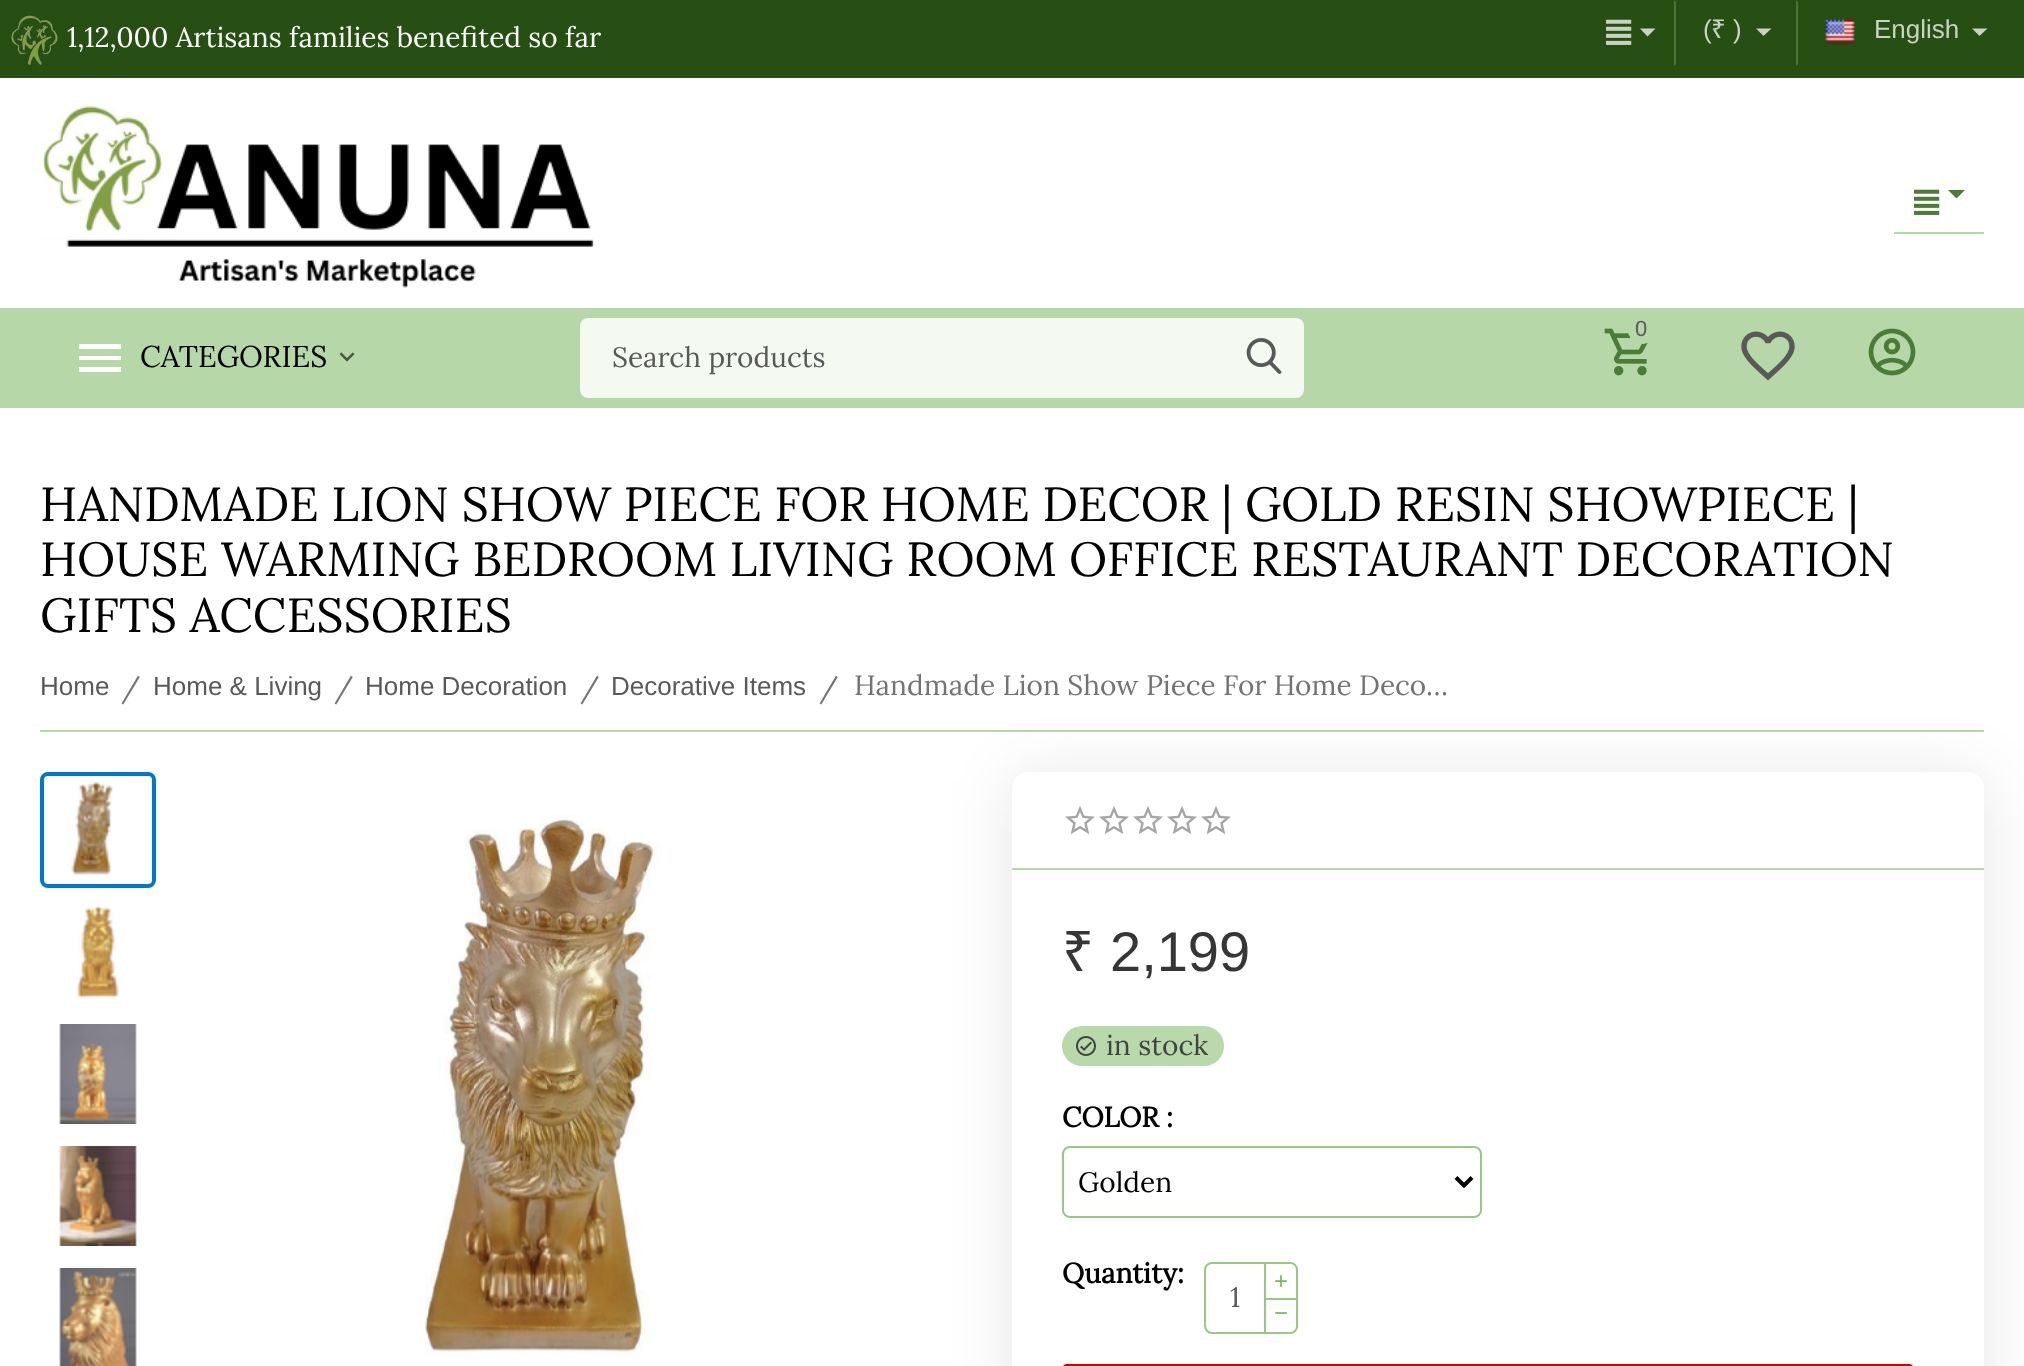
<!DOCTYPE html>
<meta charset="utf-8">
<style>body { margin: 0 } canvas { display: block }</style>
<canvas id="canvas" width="2024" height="1366"></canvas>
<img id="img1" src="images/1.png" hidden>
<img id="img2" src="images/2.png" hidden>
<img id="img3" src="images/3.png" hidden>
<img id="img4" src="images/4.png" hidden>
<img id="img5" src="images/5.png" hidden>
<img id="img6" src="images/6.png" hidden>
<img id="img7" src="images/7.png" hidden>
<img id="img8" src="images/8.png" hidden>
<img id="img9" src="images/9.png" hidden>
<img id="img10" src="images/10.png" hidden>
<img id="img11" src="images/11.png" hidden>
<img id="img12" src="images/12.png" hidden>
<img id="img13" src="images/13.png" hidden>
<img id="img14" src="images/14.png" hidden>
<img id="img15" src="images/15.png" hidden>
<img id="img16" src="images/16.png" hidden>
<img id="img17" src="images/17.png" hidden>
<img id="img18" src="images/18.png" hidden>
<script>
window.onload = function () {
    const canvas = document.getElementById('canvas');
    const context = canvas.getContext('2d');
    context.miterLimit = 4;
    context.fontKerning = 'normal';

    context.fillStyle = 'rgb(39, 78, 19)';
    context.fillRect(0, 0, 2024, 1366);
    context.drawImage(document.getElementById('img1'), 11, 15, 47, 50);
    context.drawImage(document.getElementById('img2'), 1606, 19, 26, 26);
    context.fillStyle = 'rgb(201, 211, 196)';
    context.beginPath();
    context.moveTo(1647.5, 36.5);
    context.lineTo(1640, 28.5);
    context.lineTo(1655.5, 28.5);
    context.closePath();
    context.fill();
    context.fillStyle = 'rgb(82, 113, 66)';
    context.beginPath();
    context.moveTo(1674, 66);
    context.lineTo(1674, 0);
    context.lineTo(1676, 2);
    context.lineTo(1676, 64);
    context.closePath();
    context.fill();
    context.fillStyle = 'rgb(201, 211, 196)';
    context.beginPath();
    context.moveTo(1763.5, 36);
    context.lineTo(1756, 28.5);
    context.lineTo(1771.5, 28.5);
    context.closePath();
    context.fill();
    context.fillStyle = 'rgb(82, 113, 66)';
    context.beginPath();
    context.moveTo(1796, 66);
    context.lineTo(1796, 0);
    context.lineTo(1798, 2);
    context.lineTo(1798, 64);
    context.closePath();
    context.fill();
    context.drawImage(document.getElementById('img3'), 1825, 19, 30, 26);
    context.fillStyle = 'rgb(201, 211, 196)';
    context.beginPath();
    context.moveTo(1979.5, 36);
    context.lineTo(1972, 28.5);
    context.lineTo(1987.5, 28.5);
    context.closePath();
    context.fill();
    context.fillStyle = 'rgb(255, 255, 255)';
    context.fillRect(0, 78, 2024, 230);
    context.drawImage(document.getElementById('img4'), 40, 104, 554, 184);
    context.fillStyle = 'rgb(182, 215, 168)';
    context.fillRect(1894, 232, 90, 2);
    context.drawImage(document.getElementById('img5'), 1914, 189, 26, 26);
    context.fillStyle = 'rgb(76, 123, 56)';
    context.beginPath();
    context.moveTo(1956.5, 198.5);
    context.lineTo(1948, 190);
    context.lineTo(1965, 190);
    context.closePath();
    context.fill();
    context.fillStyle = 'rgb(182, 215, 168)';
    context.fillRect(0, 308, 2024, 100);
    context.drawImage(document.getElementById('img6'), 1604, 328, 45, 48);
    context.beginPath();
    context.arc(1642, 330, 14, 0, 2 * Math.PI);
    context.fill();
    context.drawImage(document.getElementById('img7'), 1741, 331, 54, 50);
    context.drawImage(document.getElementById('img8'), 1868, 328, 48, 48);
    context.fillStyle = 'rgb(255, 255, 255)';
    context.beginPath();
    context.moveTo(79, 372);
    context.lineTo(121, 372);
    context.lineTo(121, 367);
    context.lineTo(79, 367);
    context.closePath();
    context.moveTo(79, 360);
    context.lineTo(121, 360);
    context.lineTo(121, 356);
    context.lineTo(79, 356);
    context.closePath();
    context.moveTo(79, 344);
    context.lineTo(79, 349);
    context.lineTo(121, 349);
    context.lineTo(121, 344);
    context.closePath();
    context.fill();
    context.drawImage(document.getElementById('img9'), 339, 352, 16, 10);
    context.fillStyle = 'rgb(244, 249, 242)';
    context.beginPath();
    context.roundRect(580, 318, 724, 80, 8);
    context.fill();
    context.drawImage(document.getElementById('img10'), 1246, 338, 36, 36);
    context.fillStyle = 'rgb(255, 255, 255)';
    context.fillRect(0, 408, 2024, 958);
    context.fillStyle = 'rgba(0, 0, 0, 0.1)';
    context.filter = 'blur(32px)';
    context.beginPath();
    context.roundRect(1012, 776, 972, 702, 16);
    context.fill();
    context.filter = 'none';
    context.fillStyle = 'rgb(182, 215, 168)';
    context.fillRect(40, 730, 1944, 2);
    context.beginPath();
    context.roundRect(42, 774, 112, 112, 6);
    context.strokeStyle = 'rgb(0, 119, 204)';
    context.lineWidth = 4;
    context.stroke();
    context.drawImage(document.getElementById('img11'), 71, 781, 42, 94);
    context.drawImage(document.getElementById('img12'), 77, 905, 42, 94);
    context.drawImage(document.getElementById('img13'), 59, 1024, 78, 100);
    context.drawImage(document.getElementById('img14'), 59, 1146, 78, 100);
    context.drawImage(document.getElementById('img15'), 59, 1268, 78, 98);
    context.drawImage(document.getElementById('img16'), 425, 815, 238, 542);
    context.fillStyle = 'rgb(255, 255, 255)';
    context.beginPath();
    context.roundRect(1012, 772, 972, 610, 16);
    context.fill();
    context.fillStyle = 'rgb(182, 215, 168)';
    context.fillRect(1012, 868, 972, 2);
    context.drawImage(document.getElementById('img17'), 1065, 806, 166, 28);
    context.fillStyle = 'rgb(185, 217, 171)';
    context.beginPath();
    context.roundRect(1062, 1026, 162, 40, 20);
    context.fill();
    context.drawImage(document.getElementById('img18'), 1076, 1036, 20, 20);
    context.beginPath();
    context.roundRect(1063, 1147, 418, 70, 7);
    context.strokeStyle = 'rgb(153, 199, 133)';
    context.lineWidth = 2;
    context.stroke();
    context.beginPath();
    context.moveTo(1456, 1177.5);
    context.lineTo(1464, 1185.5);
    context.lineTo(1472, 1177.5);
    context.strokeStyle = 'rgb(0, 0, 0)';
    context.lineWidth = 4;
    context.stroke();
    context.fillStyle = 'rgb(153, 199, 133)';
    context.beginPath();
    context.moveTo(1266, 1262);
    context.lineTo(1290, 1262);
    context.bezierCurveTo(1294.5, 1262, 1298, 1265.5, 1298, 1270);
    context.lineTo(1298, 1298);
    context.lineTo(1266, 1298);
    context.closePath();
    context.moveTo(1266, 1264);
    context.lineTo(1290, 1264);
    context.bezierCurveTo(1293.5, 1264, 1296, 1266.5, 1296, 1270);
    context.lineTo(1296, 1298);
    context.lineTo(1266, 1298);
    context.closePath();
    context.fill('evenodd');
    context.beginPath();
    context.roundRect(1205, 1263, 60, 70, [7, 0, 0, 7]);
    context.strokeStyle = 'rgb(153, 199, 133)';
    context.lineWidth = 2;
    context.stroke();
    context.beginPath();
    context.moveTo(1266, 1298);
    context.lineTo(1298, 1298);
    context.lineTo(1298, 1326);
    context.bezierCurveTo(1298, 1330.5, 1294.5, 1334, 1290, 1334);
    context.lineTo(1266, 1334);
    context.closePath();
    context.moveTo(1266, 1300);
    context.lineTo(1296, 1300);
    context.lineTo(1296, 1326);
    context.bezierCurveTo(1296, 1329.5, 1293.5, 1332, 1290, 1332);
    context.lineTo(1266, 1332);
    context.closePath();
    context.fill('evenodd');
    context.fillStyle = 'rgb(204, 4, 4)';
    context.beginPath();
    context.roundRect(1062, 1364, 852, 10, 8);
    context.fill();
    context.font = '28px Lora';
    context.fillStyle = 'rgb(255, 255, 255)';
    context.fillText('1,12,000 Artisans families benefited so far', 67, 47);
    context.font = '26px Liberation Sans';
    context.fillStyle = 'rgb(201, 211, 196)';
    context.fillText('(', 1703, 38);
    context.font = '26px Noto Sans';
    context.fillText('₹', 1711, 38);
    context.font = '26px Liberation Sans';
    context.fillText(')', 1733, 38);
    context.fillText('English', 1874, 38);
    context.font = '22px Liberation Sans';
    context.fillStyle = 'rgb(89, 89, 89)';
    context.fillText('0', 1635, 336);
    context.font = '30px Lora';
    context.fillStyle = 'rgb(0, 0, 0)';
    context.fillText('CATEGORIES', 140, 367);
    context.font = '28px Lora';
    context.fillStyle = 'rgb(89, 89, 89)';
    context.fillText('Search products', 612, 367);
    context.font = '48px Lora';
    context.fillStyle = 'rgb(0, 0, 0)';
    context.fillText('HANDMADE LION SHOW PIECE FOR HOME DECOR | GOLD RESIN SHOWPIECE |', 40, 521);
    context.fillText('HOUSE WARMING BEDROOM LIVING ROOM OFFICE RESTAURANT DECORATION', 40, 576);
    context.fillText('GIFTS ACCESSORIES', 40, 632);
    context.font = '26px Liberation Sans';
    context.fillStyle = 'rgb(89, 89, 89)';
    context.fillText('Home', 40, 695);
    context.font = '28px Lora';
    context.fillStyle = 'rgb(115, 115, 115)';
    context.fillText('/', 121, 697);
    context.font = '26px Liberation Sans';
    context.fillStyle = 'rgb(89, 89, 89)';
    context.fillText('Home & Living', 153, 695);
    context.font = '28px Lora';
    context.fillStyle = 'rgb(115, 115, 115)';
    context.fillText('/', 334, 697);
    context.font = '26px Liberation Sans';
    context.fillStyle = 'rgb(89, 89, 89)';
    context.fillText('Home Decoration', 365, 695);
    context.font = '28px Lora';
    context.fillStyle = 'rgb(115, 115, 115)';
    context.fillText('/', 580, 697);
    context.font = '26px Liberation Sans';
    context.fillStyle = 'rgb(89, 89, 89)';
    context.fillText('Decorative Items', 611, 695);
    context.font = '28px Lora';
    context.fillStyle = 'rgb(115, 115, 115)';
    context.fillText('/', 819, 697);
    context.fillText('Handmade Lion Show Piece For Home Deco…', 854, 695);
    context.font = '56px Noto Sans';
    context.fillStyle = 'rgb(54, 54, 54)';
    context.fillText('₹', 1062, 971);
    context.font = '56px Liberation Sans';
    context.fillText('2,199', 1110, 971);
    context.font = '28px Lora';
    context.fillStyle = 'rgb(67, 67, 67)';
    context.fillText('in stock', 1106, 1055);
    context.font = 'bold 28px Lora';
    context.fillStyle = 'rgb(0, 0, 0)';
    context.fillText('COLOR :', 1062, 1127);
    context.font = '28px Lora';
    context.fillText('Golden', 1078, 1192);
    context.font = 'bold 28px Lora';
    context.fillText('Quantity:', 1062, 1283);
    context.font = '24px Liberation Sans';
    context.fillStyle = 'rgb(123, 183, 98)';
    context.fillText('+', 1274, 1289);
    context.font = '28px Lora';
    context.fillStyle = 'rgb(89, 89, 89)';
    context.fillText('1', 1230, 1307);
    context.font = '24px Liberation Sans';
    context.fillStyle = 'rgb(123, 183, 98)';
    context.fillText('−', 1274, 1321);
};
</script>
